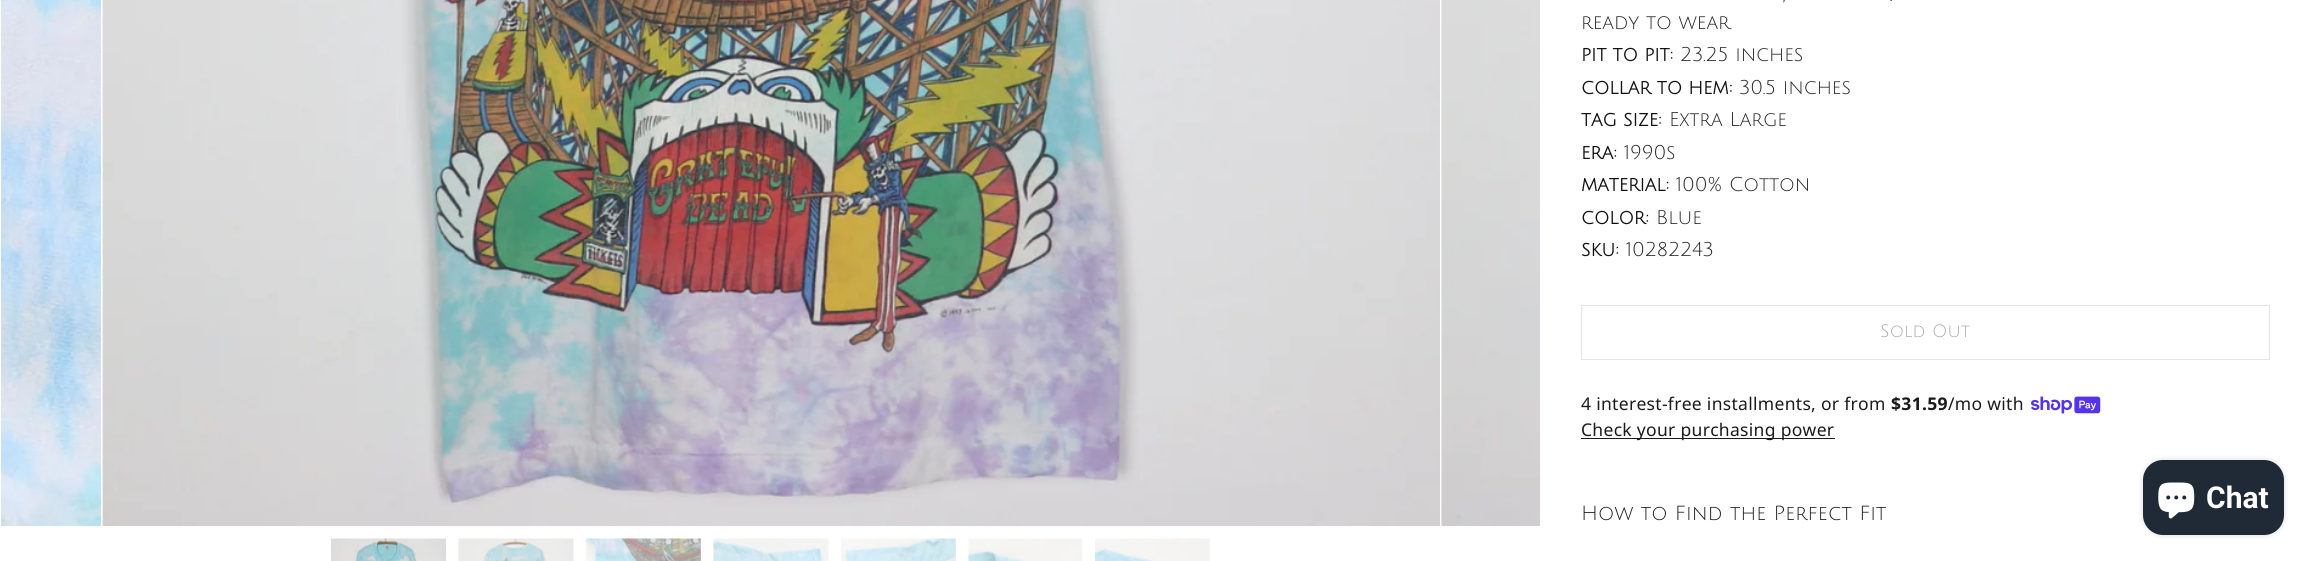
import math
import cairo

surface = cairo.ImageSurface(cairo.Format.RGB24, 2311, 561)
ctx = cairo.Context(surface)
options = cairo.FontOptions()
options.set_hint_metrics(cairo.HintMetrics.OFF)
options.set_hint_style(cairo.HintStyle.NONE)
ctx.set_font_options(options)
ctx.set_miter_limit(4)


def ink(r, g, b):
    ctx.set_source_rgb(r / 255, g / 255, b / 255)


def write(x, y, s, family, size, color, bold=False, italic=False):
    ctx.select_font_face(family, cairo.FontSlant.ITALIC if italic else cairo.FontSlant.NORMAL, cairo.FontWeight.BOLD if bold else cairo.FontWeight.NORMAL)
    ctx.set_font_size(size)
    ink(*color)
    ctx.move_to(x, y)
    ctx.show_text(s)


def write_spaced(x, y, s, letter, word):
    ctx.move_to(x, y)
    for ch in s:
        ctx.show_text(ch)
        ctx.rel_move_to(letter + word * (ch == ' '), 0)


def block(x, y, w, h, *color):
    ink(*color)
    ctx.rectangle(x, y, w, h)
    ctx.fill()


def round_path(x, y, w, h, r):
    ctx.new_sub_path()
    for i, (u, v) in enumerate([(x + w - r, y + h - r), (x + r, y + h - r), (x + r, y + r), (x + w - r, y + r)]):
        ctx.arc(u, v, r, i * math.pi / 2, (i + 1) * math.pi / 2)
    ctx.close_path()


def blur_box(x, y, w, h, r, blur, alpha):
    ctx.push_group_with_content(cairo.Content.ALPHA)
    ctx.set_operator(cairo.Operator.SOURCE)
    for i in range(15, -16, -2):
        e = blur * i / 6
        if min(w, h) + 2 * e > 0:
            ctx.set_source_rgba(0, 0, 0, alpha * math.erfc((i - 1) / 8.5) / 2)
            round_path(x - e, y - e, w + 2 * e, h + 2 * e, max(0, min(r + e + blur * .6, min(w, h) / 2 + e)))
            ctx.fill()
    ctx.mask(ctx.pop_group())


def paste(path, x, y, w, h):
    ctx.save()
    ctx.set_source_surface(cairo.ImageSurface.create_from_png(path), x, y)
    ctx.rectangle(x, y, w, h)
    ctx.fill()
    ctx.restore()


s1 = dict(family="Roboto", size=30, color=(255, 255, 255), bold=True)

ink(255, 255, 255)
ctx.paint()
paste("pic1.png", 1, 0, 100, 526)
paste("pic2.png", 102, 0, 1338, 526)
paste("pic3.png", 1441, 0, 99, 526)
paste("pic4.png", 331, 538, 115, 23)
paste("pic5.png", 458, 538, 116, 23)
paste("pic6.png", 585, 538, 116, 23)
paste("pic7.png", 713, 538, 116, 23)
paste("pic8.png", 841, 538, 115, 23)
paste("pic9.png", 968, 538, 115, 23)
paste("pic10.png", 1095, 538, 115, 23)
ctx.select_font_face("Julius Sans One")
ctx.set_font_size(19.5)
ink(34, 34, 34)
write_spaced(1783, 1, ",", -0.1, 0)
write_spaced(1890, 1, ".", -0.1, 0)
write_spaced(1581, 29, "ready to wear.", -0.1, 0)
ctx.select_font_face("Julius Sans One", cairo.FontSlant.NORMAL, cairo.FontWeight.BOLD)
ctx.set_font_size(17.5)
ink(17, 17, 17)
write_spaced(1581, 61, "PIT TO PIT:", -0.1, 0)
ctx.select_font_face("Julius Sans One")
ctx.set_font_size(19.5)
ink(34, 34, 34)
write_spaced(1680, 61, "23.25 inches", -0.1, 0)
ctx.select_font_face("Julius Sans One", cairo.FontSlant.NORMAL, cairo.FontWeight.BOLD)
ctx.set_font_size(17.5)
ink(17, 17, 17)
write_spaced(1581, 94, "COLLAR TO HEM:", -0.1, 0)
ctx.select_font_face("Julius Sans One")
ctx.set_font_size(19.5)
ink(34, 34, 34)
write_spaced(1739, 94, "30.5 inches", -0.1, 0)
ctx.select_font_face("Julius Sans One", cairo.FontSlant.NORMAL, cairo.FontWeight.BOLD)
ctx.set_font_size(17.5)
ink(17, 17, 17)
write_spaced(1581, 126, "TAG SIZE:", -0.1, 0)
ctx.select_font_face("Julius Sans One")
ctx.set_font_size(19.5)
ink(34, 34, 34)
write_spaced(1669, 126, "Extra Large", -0.1, 0)
ctx.select_font_face("Julius Sans One", cairo.FontSlant.NORMAL, cairo.FontWeight.BOLD)
ctx.set_font_size(17.5)
ink(17, 17, 17)
write_spaced(1581, 159, "ERA:", -0.1, 0)
ctx.select_font_face("Julius Sans One")
ctx.set_font_size(19.5)
ink(34, 34, 34)
write_spaced(1624, 159, "1990s", -0.1, 0)
ctx.select_font_face("Julius Sans One", cairo.FontSlant.NORMAL, cairo.FontWeight.BOLD)
ctx.set_font_size(17.5)
ink(17, 17, 17)
write_spaced(1581, 191, "MATERIAL:", -0.1, 0)
ctx.select_font_face("Julius Sans One")
ctx.set_font_size(19.5)
ink(34, 34, 34)
write_spaced(1676, 191, "100% Cotton", -0.1, 0)
ctx.select_font_face("Julius Sans One", cairo.FontSlant.NORMAL, cairo.FontWeight.BOLD)
ctx.set_font_size(17.5)
ink(17, 17, 17)
write_spaced(1581, 224, "COLOR:", -0.1, 0)
ctx.select_font_face("Julius Sans One")
ctx.set_font_size(19.5)
ink(34, 34, 34)
write_spaced(1656, 224, "Blue", -0.1, 0)
ctx.select_font_face("Julius Sans One", cairo.FontSlant.NORMAL, cairo.FontWeight.BOLD)
ctx.set_font_size(17.5)
ink(17, 17, 17)
write_spaced(1581, 256, "SKU:", -0.1, 0)
ctx.select_font_face("Julius Sans One")
ctx.set_font_size(19.5)
ink(34, 34, 34)
write_spaced(1626, 256, "10282243", -0.1, 0)
ctx.rectangle(1581.5, 305.5, 688, 54)
ink(228, 228, 228)
ctx.set_line_width(1)
ctx.stroke()
ctx.set_font_size(17.5)
ink(169, 168, 168)
write_spaced(1880, 337, "Sold Out", 0.1, 0)
ctx.select_font_face("Noto Sans")
ink(28, 27, 27)
write_spaced(1581, 410, "4 interest-free installments, or from", 0.3, 0)
ctx.select_font_face("Noto Sans", cairo.FontSlant.NORMAL, cairo.FontWeight.BOLD)
write_spaced(1891, 410, "$31.59", 0.3, 0)
ctx.select_font_face("Noto Sans")
write_spaced(1948, 410, "/mo with", 0.3, 0)
paste("pic11.png", 2031, 396, 70, 18)
block(1581, 438, 254, 1, 28, 27, 27)
write_spaced(1581, 436, "Check your purchasing power", 0.3, 0)
ctx.select_font_face("Julius Sans One")
ctx.set_font_size(20)
write_spaced(1581, 520, "How to Find the Perfect Fit", 0.1, 0)
ink(0, 0, 0)
blur_box(2143, 460, 141, 75, 20, 3, 0.15)
ink(32, 42, 54)
round_path(2143, 460, 141, 75, 20)
ctx.fill()
paste("pic12.png", 2158, 482, 37, 37)
write(2206, 508, "Chat", **s1)
surface.write_to_png("screenshot.png")
